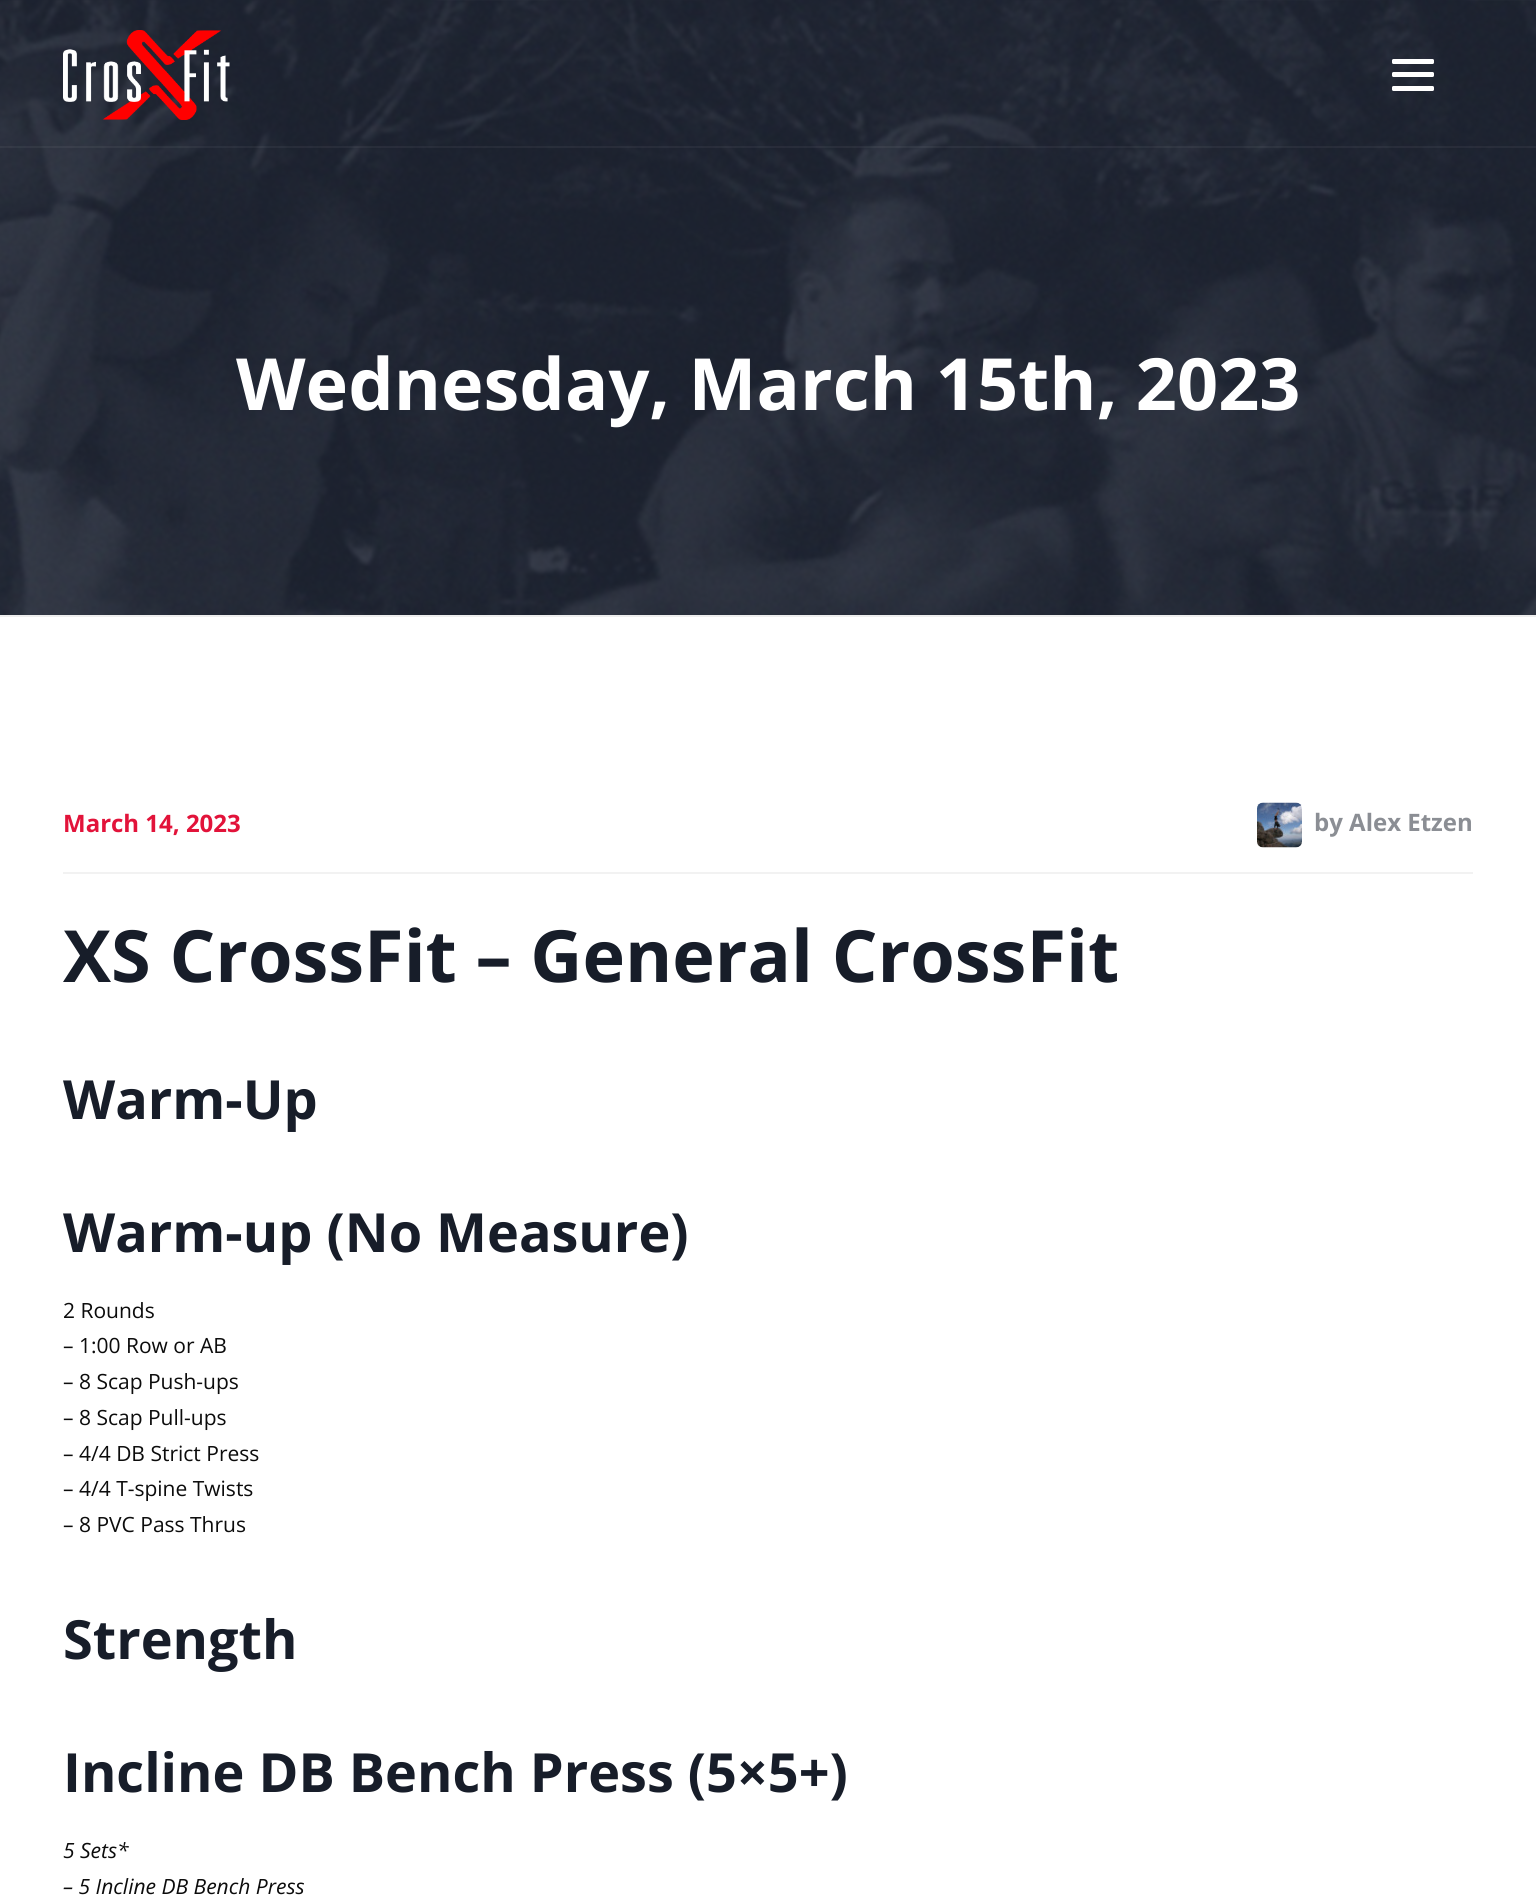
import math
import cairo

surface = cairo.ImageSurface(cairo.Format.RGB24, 1536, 1895)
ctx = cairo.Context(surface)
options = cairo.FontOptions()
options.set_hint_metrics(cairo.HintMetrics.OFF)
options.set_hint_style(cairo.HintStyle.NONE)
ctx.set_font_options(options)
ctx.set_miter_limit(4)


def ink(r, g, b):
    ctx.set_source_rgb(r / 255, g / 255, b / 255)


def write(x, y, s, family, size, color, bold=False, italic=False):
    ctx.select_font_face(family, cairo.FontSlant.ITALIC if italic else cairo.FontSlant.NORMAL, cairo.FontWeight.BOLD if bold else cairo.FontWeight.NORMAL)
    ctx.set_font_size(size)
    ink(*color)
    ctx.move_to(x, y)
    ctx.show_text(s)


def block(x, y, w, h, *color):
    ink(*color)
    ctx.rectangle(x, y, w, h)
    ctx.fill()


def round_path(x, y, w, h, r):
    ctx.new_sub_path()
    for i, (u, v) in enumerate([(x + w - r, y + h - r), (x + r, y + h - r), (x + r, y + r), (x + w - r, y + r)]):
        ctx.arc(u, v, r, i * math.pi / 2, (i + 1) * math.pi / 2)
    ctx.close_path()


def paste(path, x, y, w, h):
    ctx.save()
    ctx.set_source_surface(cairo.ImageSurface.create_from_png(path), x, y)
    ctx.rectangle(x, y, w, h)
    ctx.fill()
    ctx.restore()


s1 = dict(family="Open Sans", size=72, color=(255, 255, 255), bold=True)
s2 = dict(family="Open Sans", size=24, color=(226, 19, 58), bold=True)
s3 = dict(family="Open Sans", size=24, color=(139, 142, 148), bold=True)
s4 = dict(family="Open Sans", size=72, color=(23, 29, 41), bold=True)
s5 = dict(family="Open Sans", size=54, color=(23, 29, 41), bold=True)
s6 = dict(family="Open Sans", size=21, color=(12, 12, 12))
s7 = dict(family="Open Sans", size=21, color=(12, 12, 12), italic=True)

ink(255, 255, 255)
ctx.paint()
paste("pic2.png", 0, 0, 1536, 615)
paste("pic1.png", 63, 30, 167, 90)
ink(255, 255, 255)
round_path(1392, 59, 42, 5, 1.5)
ctx.fill()
round_path(1392, 72, 42, 5, 1.5)
ctx.fill()
round_path(1392, 86, 42, 5, 1.5)
ctx.fill()
ctx.set_source_rgba(1, 1, 1, 0.05)
ctx.rectangle(0, 146, 1536, 2)
ctx.fill()
block(0, 615, 1536, 2, 238, 238, 238)
write(236, 410, "Wednesday, March 15th, 2023", **s1)
block(63, 872, 1410, 2, 242, 242, 242)
write(63, 832, "March 14, 2023", **s2)
paste("pic3.png", 1257, 802, 45, 46)
write(1314, 831, "by Alex Etzen", **s3)
write(63, 982, "XS CrossFit – General CrossFit", **s4)
write(63, 1119, "Warm-Up", **s5)
write(63, 1252, "Warm-up (No Measure)", **s5)
write(63, 1318, "2 Rounds", **s6)
write(63, 1353, "– 1:00 Row or AB", **s6)
write(63, 1389, "– 8 Scap Push-ups", **s6)
write(63, 1425, "– 8 Scap Pull-ups", **s6)
write(63, 1461, "– 4/4 DB Strict Press", **s6)
write(63, 1496, "– 4/4 T-spine Twists", **s6)
write(63, 1532, "– 8 PVC Pass Thrus", **s6)
write(63, 1659, "Strength", **s5)
write(63, 1792, "Incline DB Bench Press (5×5+)", **s5)
write(63, 1858, "5 Sets*", **s7)
write(63, 1894, "– 5 Incline DB Bench Press", **s7)
surface.write_to_png("screenshot.png")
